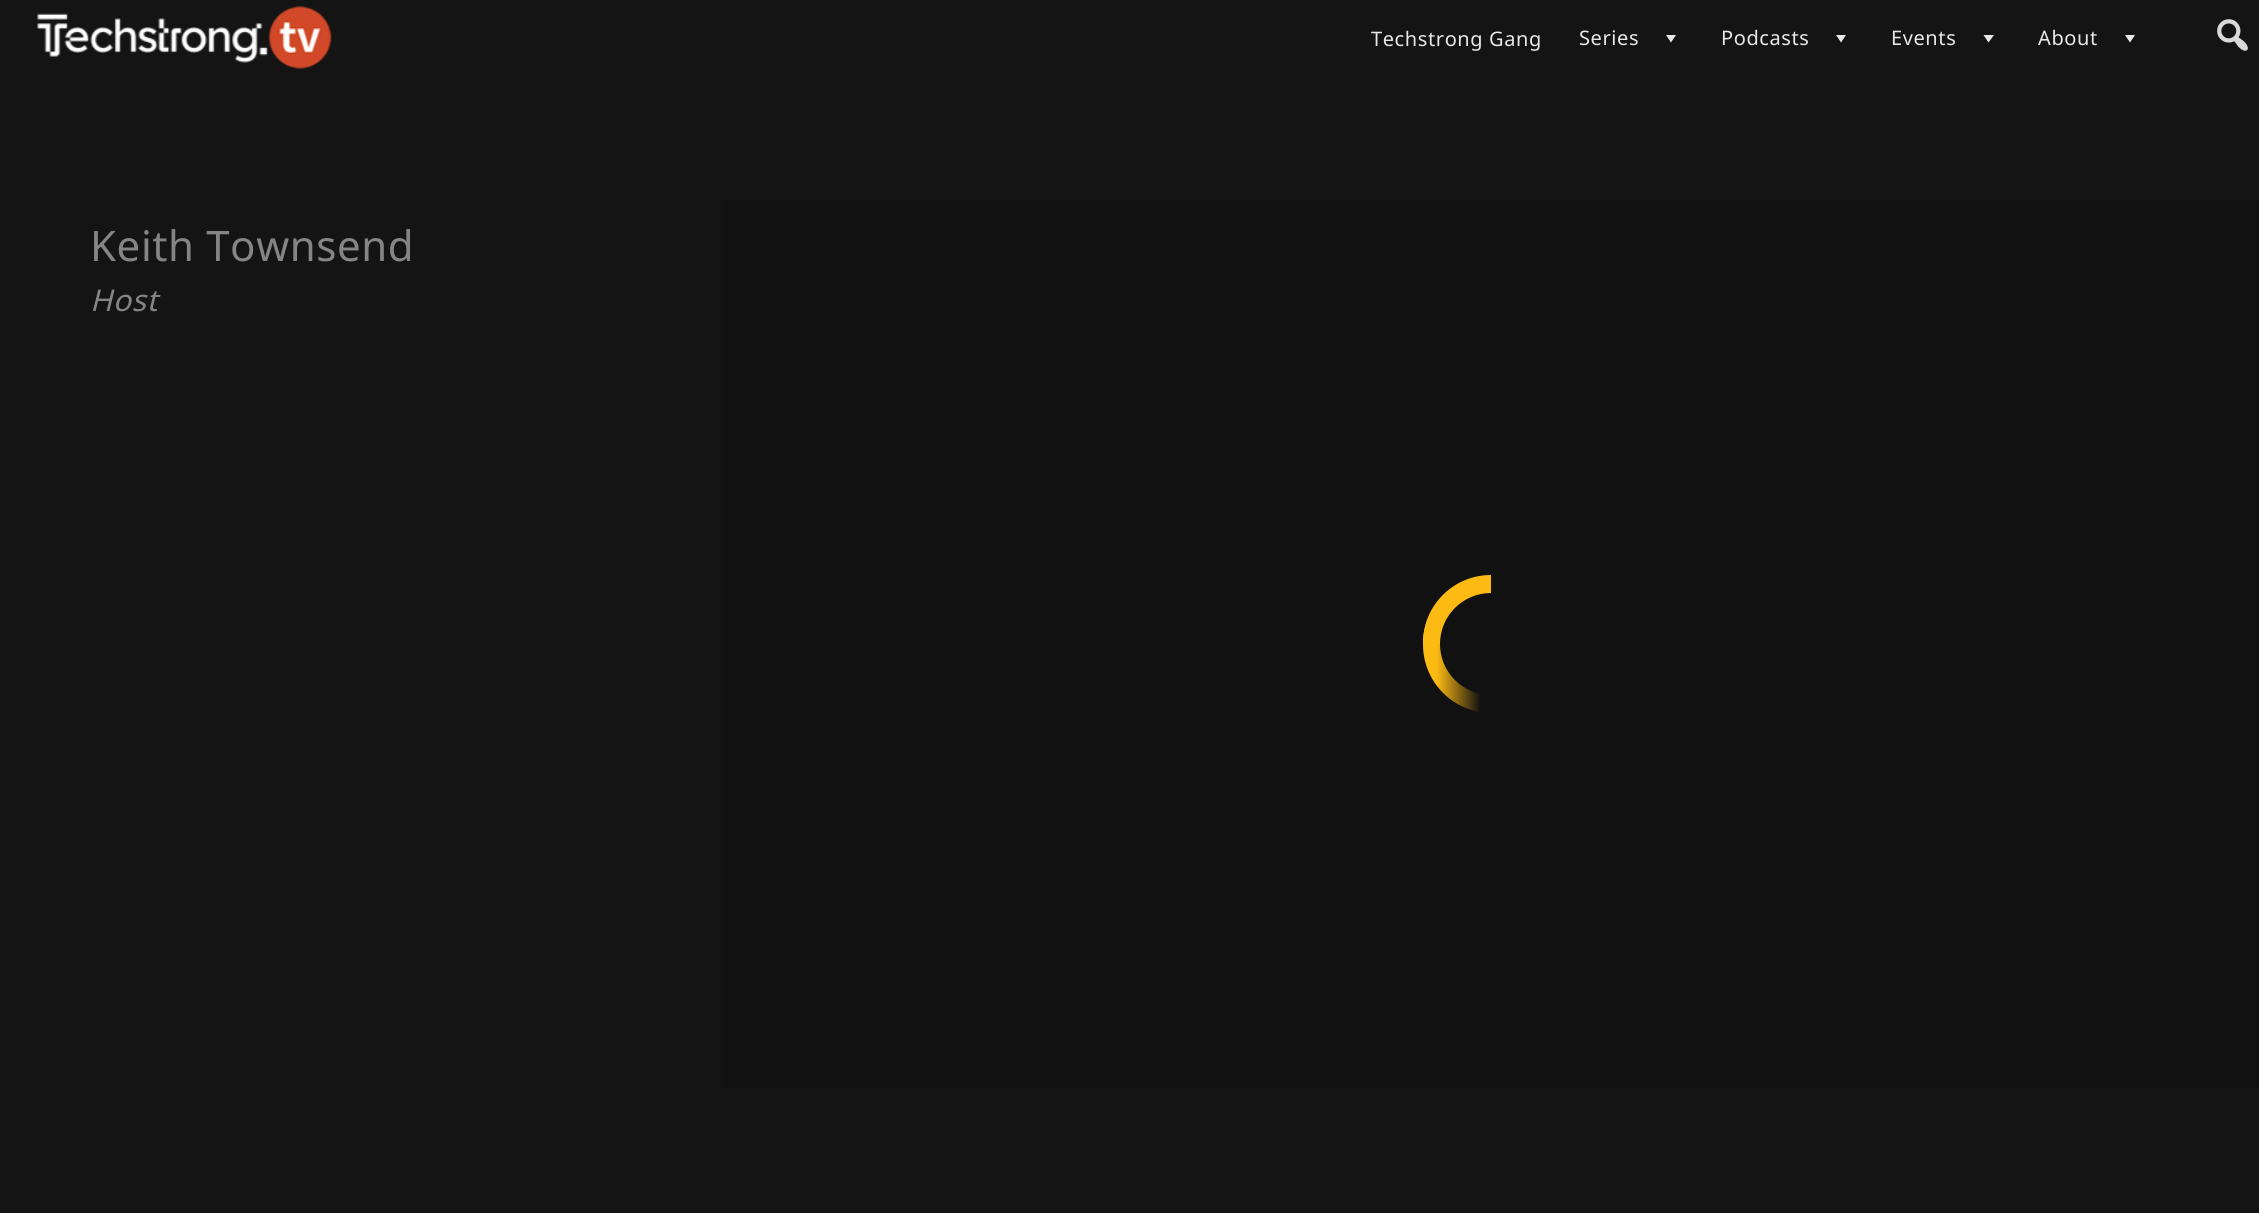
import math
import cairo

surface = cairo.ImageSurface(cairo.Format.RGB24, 2259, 1213)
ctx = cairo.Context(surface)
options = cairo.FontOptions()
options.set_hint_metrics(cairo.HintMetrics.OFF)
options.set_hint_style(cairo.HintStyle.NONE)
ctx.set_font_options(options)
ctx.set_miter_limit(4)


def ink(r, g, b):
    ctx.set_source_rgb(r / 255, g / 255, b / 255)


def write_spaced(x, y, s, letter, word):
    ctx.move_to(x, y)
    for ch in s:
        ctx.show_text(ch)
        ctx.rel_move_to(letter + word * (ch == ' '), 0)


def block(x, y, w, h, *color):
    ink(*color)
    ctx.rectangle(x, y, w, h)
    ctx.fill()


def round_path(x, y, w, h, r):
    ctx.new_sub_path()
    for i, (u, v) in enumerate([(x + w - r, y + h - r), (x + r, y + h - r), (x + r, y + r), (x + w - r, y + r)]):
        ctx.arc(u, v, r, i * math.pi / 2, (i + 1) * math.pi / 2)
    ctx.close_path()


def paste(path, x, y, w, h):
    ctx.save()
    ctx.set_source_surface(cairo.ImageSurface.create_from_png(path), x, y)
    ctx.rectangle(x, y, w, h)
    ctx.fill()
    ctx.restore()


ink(20, 20, 20)
ctx.paint()
paste("pic1.png", 37, 6, 295, 63)
ctx.select_font_face("Noto Sans")
ctx.set_font_size(20)
ink(232, 232, 232)
write_spaced(1371, 46, "Techstrong Gang", 0.6, 0)
write_spaced(1579, 45, "Series", 0.6, 0)
ctx.new_path()
ctx.move_to(1676, 35)
ctx.line_to(1671, 42.5)
ctx.line_to(1666, 35)
ctx.close_path()
ctx.fill()
write_spaced(1721, 45, "Podcasts", 0.6, 0)
ctx.new_path()
ctx.move_to(1846, 35)
ctx.line_to(1841, 42.5)
ctx.line_to(1836, 35)
ctx.close_path()
ctx.fill()
write_spaced(1891, 45, "Events", 0.6, 0)
ctx.new_path()
ctx.move_to(1994, 35)
ctx.line_to(1988.5, 42.5)
ctx.line_to(1983.5, 35)
ctx.close_path()
ctx.fill()
write_spaced(2038, 45, "About", 0.6, 0)
ctx.new_path()
ctx.move_to(2135, 35)
ctx.line_to(2130, 42.5)
ctx.line_to(2125, 35)
ctx.close_path()
ctx.fill()
paste("pic2.png", 2217, 19, 31, 32)
ctx.set_font_size(42)
ink(133, 133, 133)
write_spaced(90, 261, "Keith Townsend", 0.6, 0)
ctx.select_font_face("Noto Sans", cairo.FontSlant.ITALIC)
ctx.set_font_size(30)
write_spaced(90, 311, "Host", 0.6, 0)
block(724, 200, 1535, 888, 17, 17, 17)
gradient = cairo.LinearGradient(1423, 644, 1560, 644)
gradient.add_color_stop_rgba(0.1, 0.992, 0.729, 0.075, 1)
gradient.add_color_stop_rgba(0.42, 0.067, 0.067, 0.067, 1)
ctx.set_source(gradient)
round_path(1423, 575, 137, 138, 68.5)
ctx.fill()
ink(253, 186, 19)
ctx.new_path()
ctx.move_to(1491, 575)
ctx.line_to(1491, 644)
ctx.line_to(1423, 644)
ctx.line_to(1423, 643)
ctx.curve_to(1423, 605.5, 1453.5, 575, 1491, 575)
ctx.close_path()
ctx.fill()
ink(17, 17, 17)
round_path(1440, 593, 104, 102, 51)
ctx.fill()
surface.write_to_png("screenshot.png")
